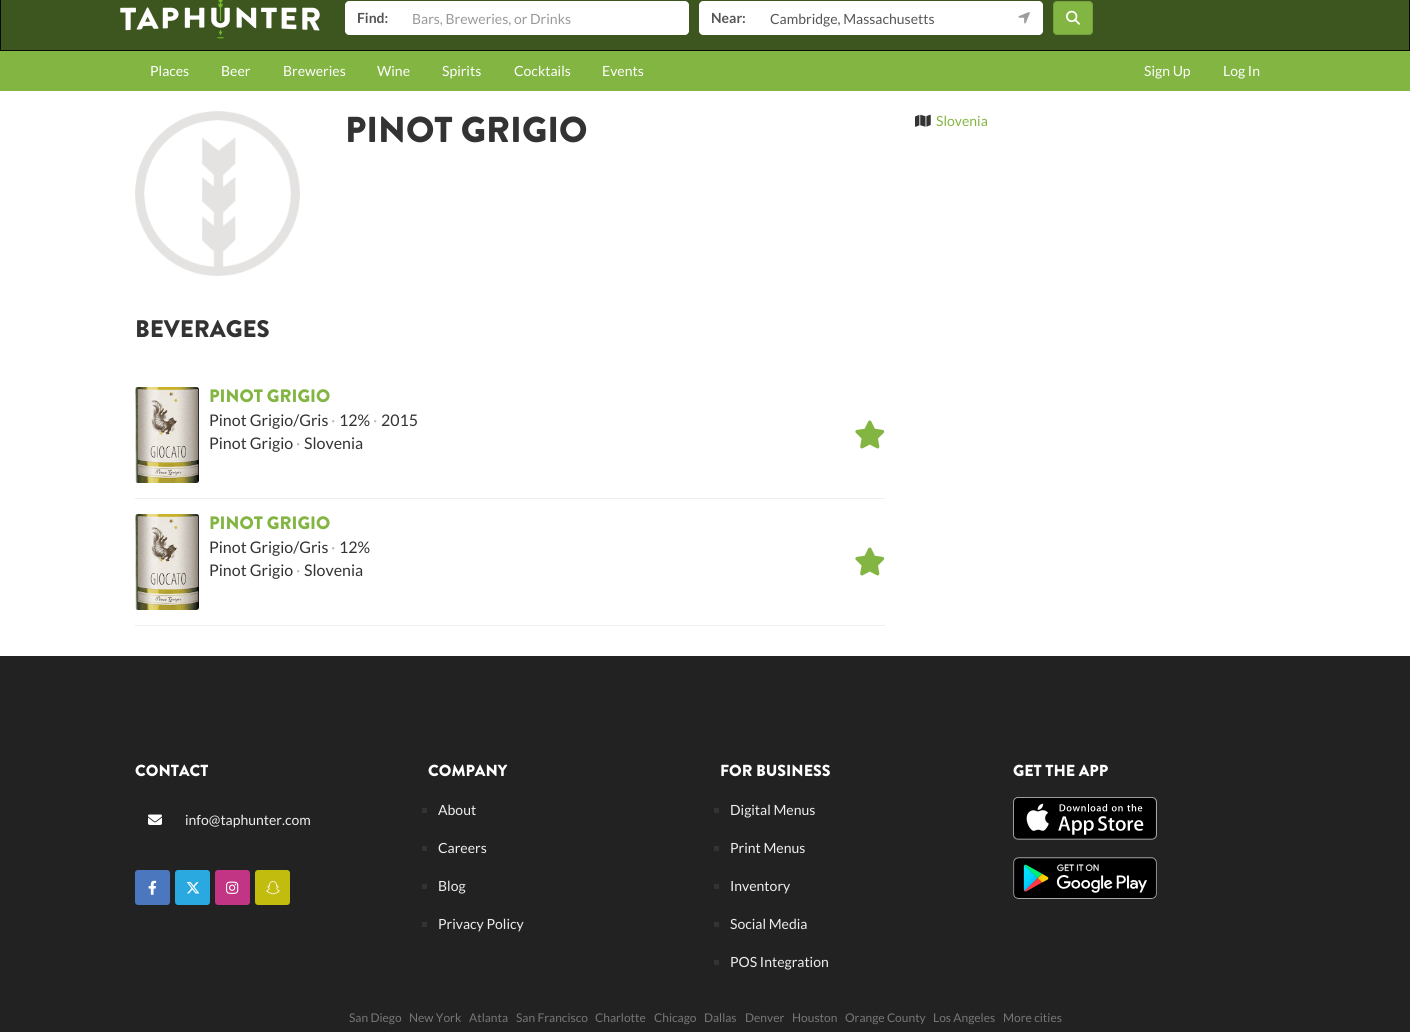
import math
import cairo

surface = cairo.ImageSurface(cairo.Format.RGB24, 1410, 1032)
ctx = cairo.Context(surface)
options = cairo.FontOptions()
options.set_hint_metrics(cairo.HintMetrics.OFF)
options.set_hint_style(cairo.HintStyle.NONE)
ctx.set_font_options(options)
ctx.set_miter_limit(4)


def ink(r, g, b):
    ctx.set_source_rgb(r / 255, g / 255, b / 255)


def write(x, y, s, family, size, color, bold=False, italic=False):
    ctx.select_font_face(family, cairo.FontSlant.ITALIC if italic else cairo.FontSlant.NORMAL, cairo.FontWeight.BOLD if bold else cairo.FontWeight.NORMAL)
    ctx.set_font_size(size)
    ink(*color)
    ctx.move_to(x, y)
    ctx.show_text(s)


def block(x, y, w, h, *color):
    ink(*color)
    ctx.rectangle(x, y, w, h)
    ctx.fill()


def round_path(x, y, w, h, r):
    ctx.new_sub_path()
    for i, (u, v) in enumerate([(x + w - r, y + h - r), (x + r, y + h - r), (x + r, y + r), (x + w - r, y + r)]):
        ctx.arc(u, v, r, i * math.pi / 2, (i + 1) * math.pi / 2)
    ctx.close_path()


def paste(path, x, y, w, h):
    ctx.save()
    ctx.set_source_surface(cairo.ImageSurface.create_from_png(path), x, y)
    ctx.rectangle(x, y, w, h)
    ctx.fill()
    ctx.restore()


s1 = dict(family="Lato", size=14, color=(85, 85, 85), bold=True)
s2 = dict(family="Lato", size=14, color=(153, 153, 153))
s3 = dict(family="Lato", size=14, color=(85, 85, 85))
s4 = dict(family="Lato", size=14, color=(255, 255, 255))
s5 = dict(family="Brandon Grotesque Black", size=36, color=(51, 51, 51))
s6 = dict(family="Lato", size=14, color=(131, 181, 67))
s7 = dict(family="Brandon Grotesque Black", size=24, color=(51, 51, 51))
s8 = dict(family="Brandon Grotesque Black", size=18, color=(131, 181, 67))
s9 = dict(family="Lato", size=16, color=(51, 51, 51))
s10 = dict(family="Lato", size=16, color=(187, 187, 187))
s11 = dict(family="Brandon Grotesque Black", size=16, color=(255, 255, 255))
s12 = dict(family="Lato", size=14, color=(238, 238, 238))
s13 = dict(family="Lato", size=12, color=(119, 119, 119))

ink(255, 255, 255)
ctx.paint()
ink(61, 85, 30)
ctx.rectangle(0.5, -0.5, 1409, 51)
ctx.fill_preserve()
ink(9, 9, 9)
ctx.set_line_width(1)
ctx.stroke()
paste("pic1.png", 120, 0, 200, 39)
ink(255, 255, 255)
ctx.new_path()
ctx.move_to(349, 1)
ctx.line_to(400, 1)
ctx.line_to(400, 35)
ctx.line_to(349, 35)
ctx.curve_to(347, 35, 345, 33, 345, 31)
ctx.line_to(345, 5)
ctx.curve_to(345, 3, 347, 1, 349, 1)
ctx.close_path()
ctx.fill()
write(357, 23, "Find:", **s1)
ink(255, 255, 255)
ctx.new_path()
ctx.move_to(400, 1)
ctx.line_to(685, 1)
ctx.curve_to(687, 1, 689, 3, 689, 5)
ctx.line_to(689, 31)
ctx.curve_to(689, 33, 687, 35, 685, 35)
ctx.line_to(400, 35)
ctx.close_path()
ctx.fill()
write(412, 24, "Bars, Breweries, or Drinks", **s2)
ink(255, 255, 255)
ctx.new_path()
ctx.move_to(703, 1)
ctx.line_to(758, 1)
ctx.line_to(758, 35)
ctx.line_to(703, 35)
ctx.curve_to(701, 35, 699, 33, 699, 31)
ctx.line_to(699, 5)
ctx.curve_to(699, 3, 701, 1, 703, 1)
ctx.close_path()
ctx.fill()
write(711, 23, "Near:", **s1)
block(758, 1, 247, 34, 255, 255, 255)
write(770, 24, "Cambridge, Massachusetts", **s3)
ink(255, 255, 255)
ctx.new_path()
ctx.move_to(1005, 1)
ctx.line_to(1039, 1)
ctx.curve_to(1041, 1, 1043, 3, 1043, 5)
ctx.line_to(1043, 31)
ctx.curve_to(1043, 33, 1041, 35, 1039, 35)
ctx.line_to(1005, 35)
ctx.close_path()
ctx.fill()
paste("pic2.png", 1018, 12, 12, 12)
ink(131, 181, 67)
round_path(1053.5, 1.5, 39, 33, 3.5)
ctx.fill_preserve()
ink(118, 162, 60)
ctx.stroke()
paste("pic3.png", 1066, 10, 14, 15)
block(0, 51, 1410, 40, 131, 181, 67)
write(150, 76, "Places", **s4)
write(221, 76, "Beer", **s4)
write(283, 76, "Breweries", **s4)
write(377, 76, "Wine", **s4)
write(442, 76, "Spirits", **s4)
write(514, 76, "Cocktails", **s4)
write(602, 76, "Events", **s4)
write(1144, 76, "Sign Up", **s4)
write(1223, 76, "Log In", **s4)
paste("pic4.png", 135, 111, 165, 165)
write(345, 142, "PINOT GRIGIO", **s5)
paste("pic5.png", 915, 114, 16, 13)
write(936, 126, "Slovenia", **s6)
write(135, 337, "BEVERAGES", **s7)
block(135, 498, 750, 1, 238, 238, 238)
paste("pic6.png", 135, 387, 64, 96)
write(209, 402, "PINOT GRIGIO", **s8)
write(209, 426, "Pinot Grigio/Gris", **s9)
write(331, 426, "·", **s10)
write(339, 426, "12%", **s9)
write(373, 426, "·", **s10)
write(381, 426, "2015", **s9)
write(209, 449, "Pinot Grigio", **s9)
write(296, 449, "·", **s10)
write(304, 449, "Slovenia", **s9)
paste("pic7.png", 855, 420, 30, 29)
block(135, 625, 750, 1, 238, 238, 238)
paste("pic6.png", 135, 514, 64, 96)
write(209, 529, "PINOT GRIGIO", **s8)
write(209, 553, "Pinot Grigio/Gris", **s9)
write(331, 553, "·", **s10)
write(339, 553, "12%", **s9)
write(209, 576, "Pinot Grigio", **s9)
write(296, 576, "·", **s10)
write(304, 576, "Slovenia", **s9)
paste("pic7.png", 855, 547, 30, 29)
block(0, 656, 1410, 376, 34, 34, 34)
write(135, 776, "CONTACT", **s11)
paste("pic8.png", 148, 814, 14, 11)
write(185, 825, "info@taphunter.com", **s12)
ink(75, 119, 190)
round_path(135, 870, 35, 35, 3)
ctx.fill()
paste("pic9.png", 148, 880, 9, 15)
ink(42, 169, 224)
round_path(175, 870, 35, 35, 3)
ctx.fill()
paste("pic10.png", 186, 882, 14, 12)
ink(193, 53, 132)
round_path(215, 870, 35, 35, 3)
ctx.fill()
paste("pic11.png", 226, 881, 13, 13)
ink(194, 188, 15)
round_path(255, 870, 35, 35, 3)
ctx.fill()
paste("pic12.png", 266, 881, 14, 14)
write(428, 776, "COMPANY", **s11)
block(422, 808, 5, 5, 51, 51, 51)
write(438, 815, "About", **s12)
block(422, 846, 5, 5, 51, 51, 51)
write(438, 853, "Careers", **s12)
block(422, 884, 5, 5, 51, 51, 51)
write(438, 891, "Blog", **s12)
block(422, 922, 5, 5, 51, 51, 51)
write(438, 929, "Privacy Policy", **s12)
write(720, 776, "FOR BUSINESS", **s11)
block(714, 808, 5, 5, 51, 51, 51)
write(730, 815, "Digital Menus", **s12)
block(714, 846, 5, 5, 51, 51, 51)
write(730, 853, "Print Menus", **s12)
block(714, 884, 5, 5, 51, 51, 51)
write(730, 891, "Inventory", **s12)
block(714, 922, 5, 5, 51, 51, 51)
write(730, 929, "Social Media", **s12)
block(714, 960, 5, 5, 51, 51, 51)
write(730, 967, "POS Integration", **s12)
write(1013, 776, "GET THE APP", **s11)
paste("pic13.png", 1013, 797, 144, 43)
paste("pic14.png", 1013, 857, 144, 42)
write(349, 1022, "San Diego", **s13)
write(409, 1022, "New York", **s13)
write(469, 1022, "Atlanta", **s13)
write(516, 1022, "San Francisco", **s13)
write(595, 1022, "Charlotte", **s13)
write(654, 1022, "Chicago", **s13)
write(704, 1022, "Dallas", **s13)
write(745, 1022, "Denver", **s13)
write(792, 1022, "Houston", **s13)
write(845, 1022, "Orange County", **s13)
write(933, 1022, "Los Angeles", **s13)
write(1003, 1022, "More cities", **s13)
surface.write_to_png("screenshot.png")
